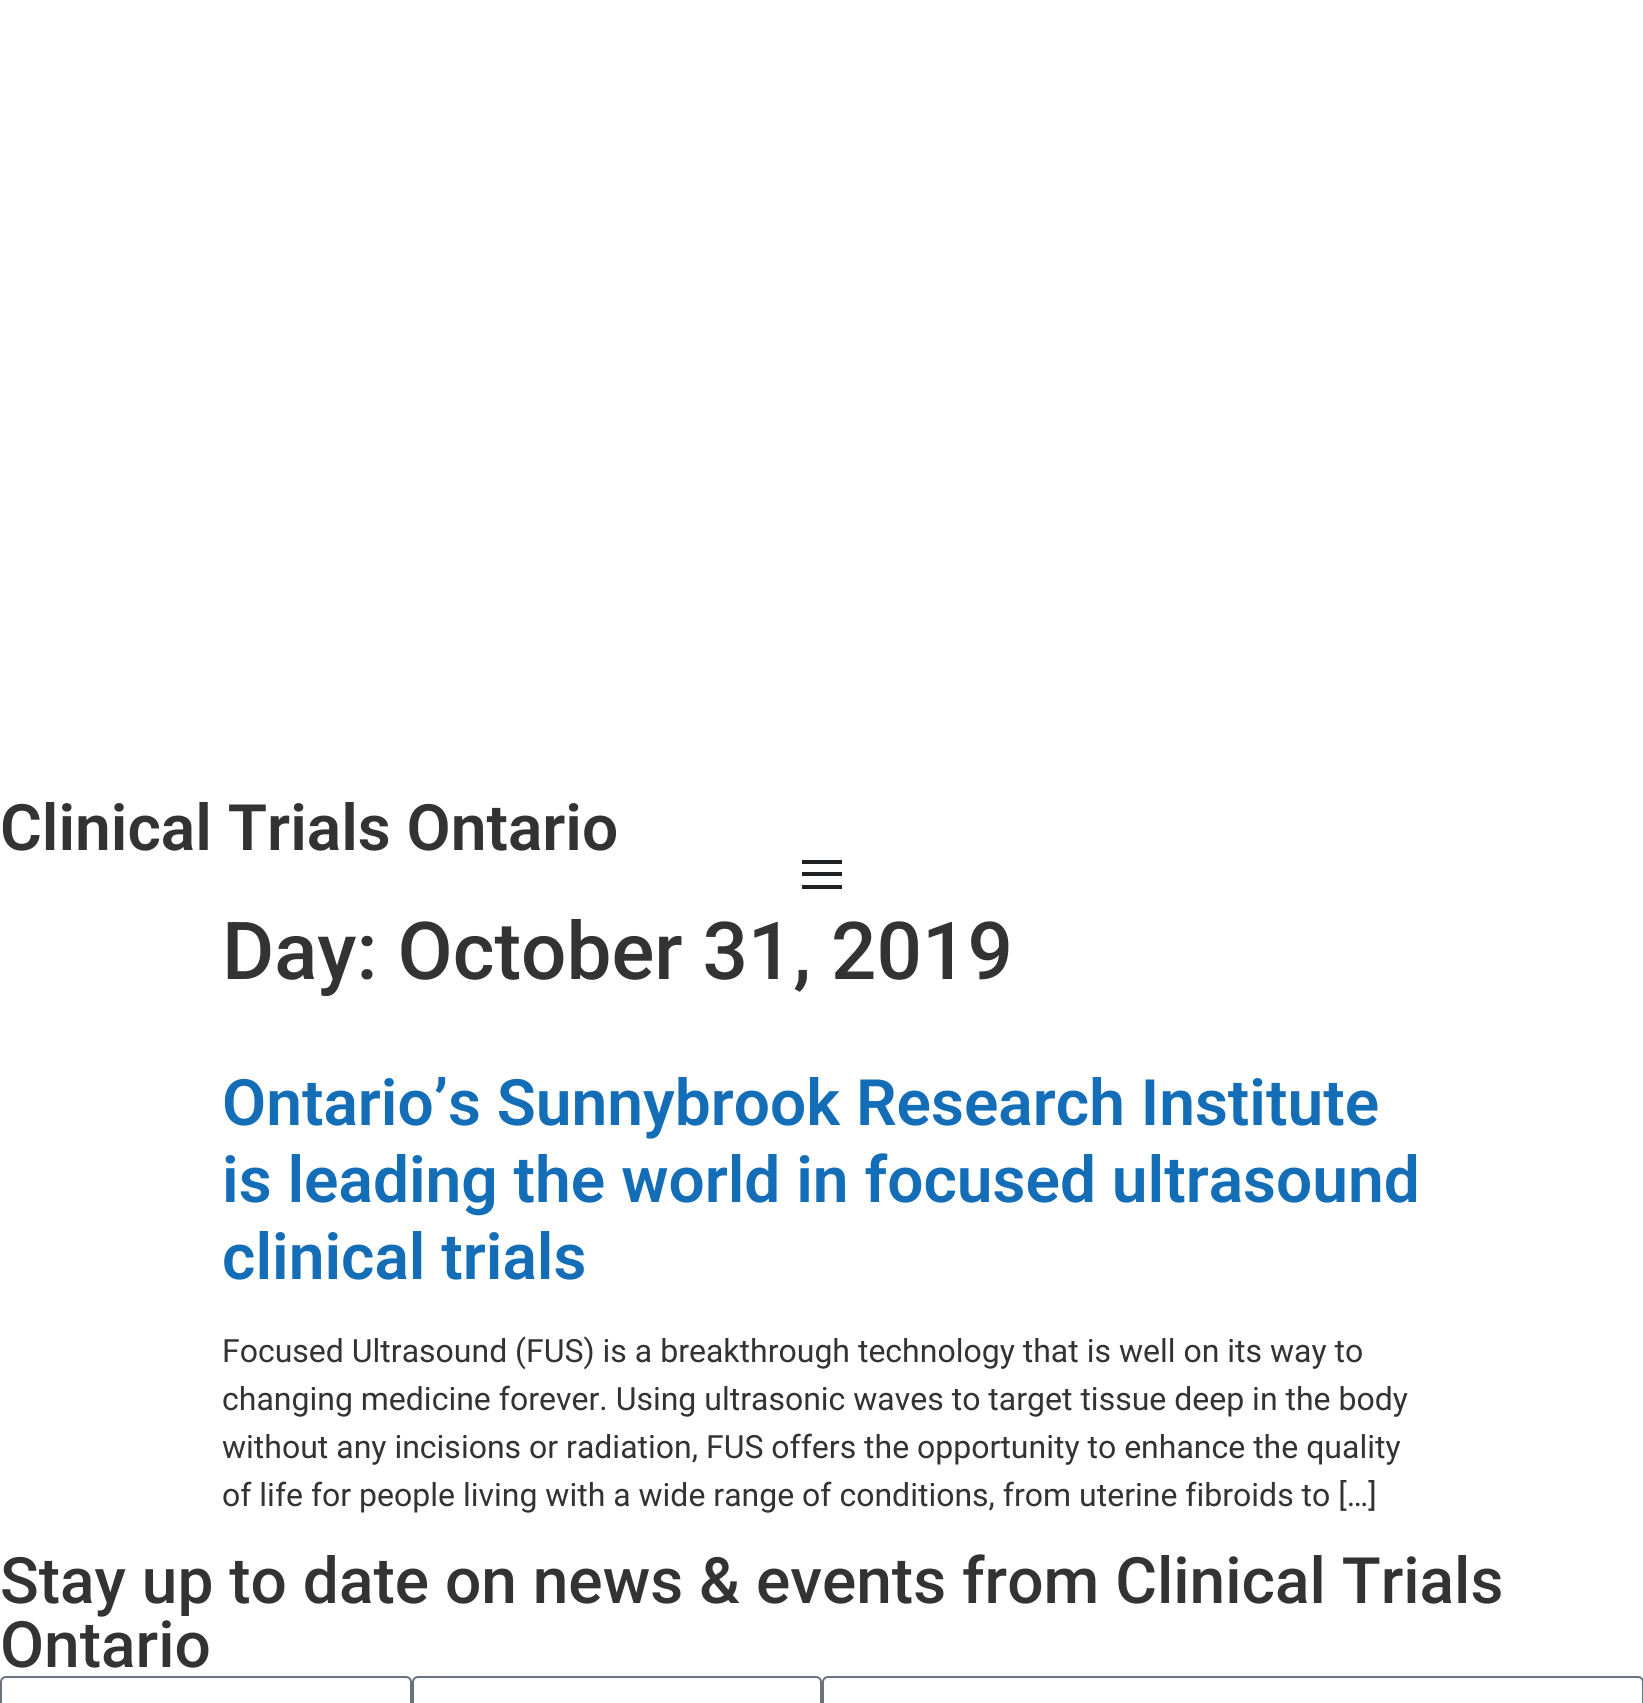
import math
import cairo

surface = cairo.ImageSurface(cairo.Format.RGB24, 1643, 1703)
ctx = cairo.Context(surface)
options = cairo.FontOptions()
options.set_hint_metrics(cairo.HintMetrics.OFF)
options.set_hint_style(cairo.HintStyle.NONE)
ctx.set_font_options(options)
ctx.set_miter_limit(4)


def ink(r, g, b):
    ctx.set_source_rgb(r / 255, g / 255, b / 255)


def write(x, y, s, family, size, color, bold=False, italic=False):
    ctx.select_font_face(family, cairo.FontSlant.ITALIC if italic else cairo.FontSlant.NORMAL, cairo.FontWeight.BOLD if bold else cairo.FontWeight.NORMAL)
    ctx.set_font_size(size)
    ink(*color)
    ctx.move_to(x, y)
    ctx.show_text(s)


def block(x, y, w, h, *color):
    ink(*color)
    ctx.rectangle(x, y, w, h)
    ctx.fill()


def round_path(x, y, w, h, r):
    ctx.new_sub_path()
    for i, (u, v) in enumerate([(x + w - r, y + h - r), (x + r, y + h - r), (x + r, y + r), (x + w - r, y + r)]):
        ctx.arc(u, v, r, i * math.pi / 2, (i + 1) * math.pi / 2)
    ctx.close_path()


s1 = dict(family="Roboto SemiBold", size=64, color=(51, 51, 51))
s2 = dict(family="Roboto Medium", size=80, color=(51, 51, 51))
s3 = dict(family="Roboto SemiBold", size=64, color=(20, 109, 183))
s4 = dict(family="Roboto", size=32, color=(51, 51, 51))
s5 = dict(family="Roboto Medium", size=64, color=(51, 51, 51))

ink(255, 255, 255)
ctx.paint()
write(0, 850, "Clinical Trials Ontario", **s1)
block(802, 872, 40, 4, 31, 33, 36)
block(802, 860, 40, 4, 31, 33, 36)
block(802, 885, 40, 4, 31, 33, 36)
write(222, 979, "Day: October 31, 2019", **s2)
write(222, 1125, "Ontario’s Sunnybrook Research Institute", **s3)
write(222, 1202, "is leading the world in focused ultrasound", **s3)
write(222, 1279, "clinical trials", **s3)
write(222, 1362, "Focused Ultrasound (FUS) is a breakthrough technology that is well on its way to", **s4)
write(222, 1410, "changing medicine forever. Using ultrasonic waves to target tissue deep in the body", **s4)
write(222, 1458, "without any incisions or radiation, FUS offers the opportunity to enhance the quality", **s4)
write(222, 1506, "of life for people living with a wide range of conditions, from uterine fibroids to […]", **s4)
write(0, 1603, "Stay up to date on news & events from Clinical Trials", **s5)
write(0, 1667, "Ontario", **s5)
round_path(1, 1677, 410, 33, 5)
ink(105, 114, 125)
ctx.stroke()
round_path(413, 1677, 408, 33, 5)
ctx.stroke()
round_path(823, 1677, 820, 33, 5)
ctx.stroke()
surface.write_to_png("screenshot.png")
